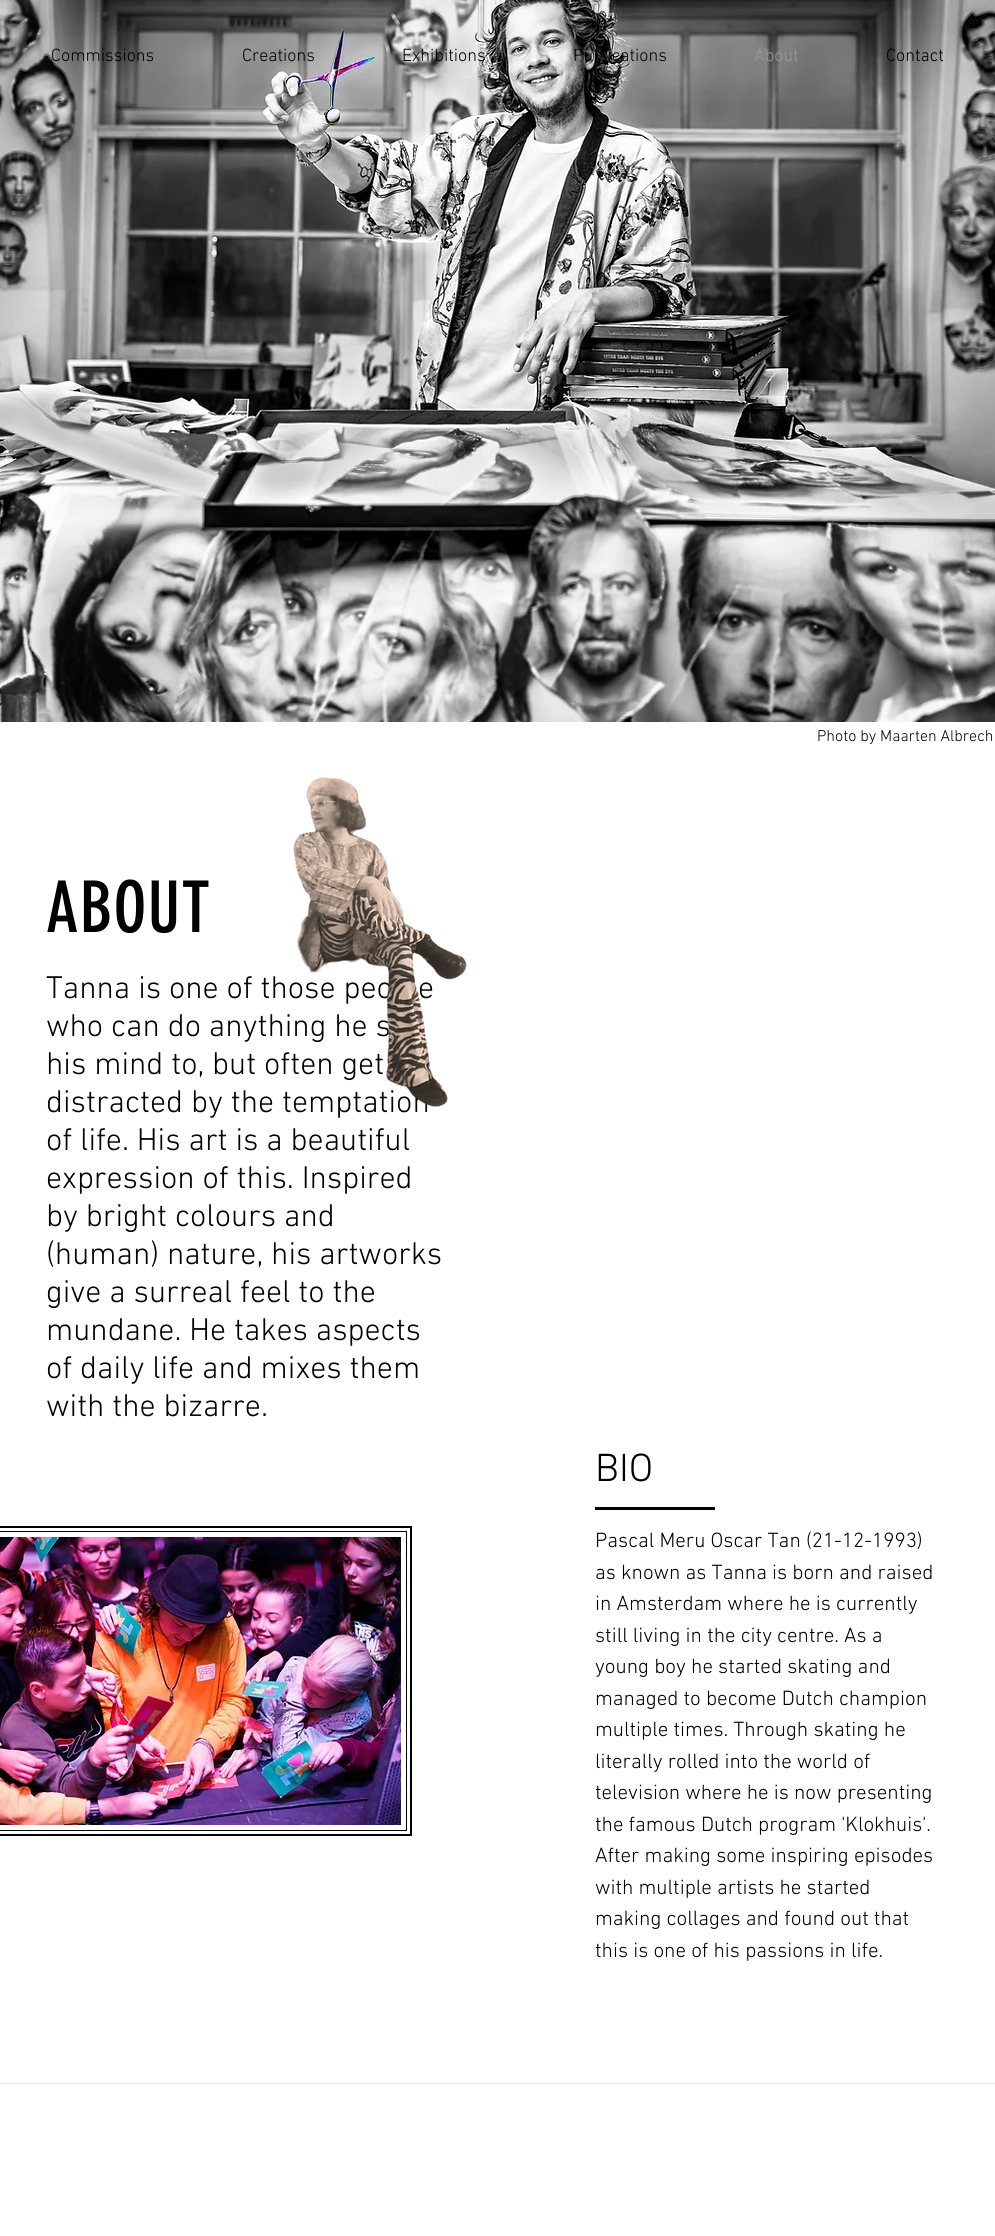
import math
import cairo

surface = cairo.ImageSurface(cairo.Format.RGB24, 995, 2236)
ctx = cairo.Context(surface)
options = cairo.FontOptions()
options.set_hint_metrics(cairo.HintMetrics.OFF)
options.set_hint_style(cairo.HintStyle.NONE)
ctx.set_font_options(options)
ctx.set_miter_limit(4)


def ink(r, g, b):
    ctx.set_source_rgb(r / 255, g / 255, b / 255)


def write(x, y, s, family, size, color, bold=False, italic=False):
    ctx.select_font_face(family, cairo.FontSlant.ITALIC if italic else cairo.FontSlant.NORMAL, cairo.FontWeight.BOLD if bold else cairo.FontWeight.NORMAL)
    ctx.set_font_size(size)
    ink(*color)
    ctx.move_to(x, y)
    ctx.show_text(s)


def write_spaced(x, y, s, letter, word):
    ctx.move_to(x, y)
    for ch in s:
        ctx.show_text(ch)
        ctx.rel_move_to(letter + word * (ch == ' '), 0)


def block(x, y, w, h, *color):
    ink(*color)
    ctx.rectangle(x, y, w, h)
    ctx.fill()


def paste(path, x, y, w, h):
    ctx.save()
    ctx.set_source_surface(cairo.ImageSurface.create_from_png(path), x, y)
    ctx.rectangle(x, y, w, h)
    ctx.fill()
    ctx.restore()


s1 = dict(family="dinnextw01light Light", size=18, color=(0, 0, 0))
s2 = dict(family="dinnextw01light Light", size=18, color=(153, 153, 151))
s3 = dict(family="dinnextw01light Light", size=16, color=(0, 0, 0))
s4 = dict(family="dinnextw01light Light", size=32, color=(0, 0, 0))
s5 = dict(family="dinnextw01light Light", size=40, color=(0, 0, 0))
s6 = dict(family="dinnextw01light Light", size=21, color=(0, 0, 0))

ink(255, 255, 255)
ctx.paint()
paste("pic1.png", 0, 0, 995, 722)
write(51, 61, "Commissions", **s1)
write(242, 61, "Creations", **s1)
write(402, 61, "Exhibitions", **s1)
write(573, 61, "Publications", **s1)
write(754, 61, "About", **s2)
write(886, 61, "Contact", **s1)
write(817, 741, "Photo by Maarten Albrech", **s3)
write(46, 998, "Tanna is one of those peo", **s4)
write(418, 998, "e", **s4)
write(46, 1036, "who can do anything he s", **s4)
write(46, 1074, "his mind to, but often get", **s4)
write(46, 1112, "distracted by the temptation", **s4)
paste("pic2.png", 293, 777, 174, 330)
ctx.select_font_face("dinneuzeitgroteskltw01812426")
ctx.set_font_size(70)
write_spaced(46, 932, "ABOUT", 1.5, 0)
write(46, 1150, "of life. His art is a beautiful", **s4)
write(46, 1188, "expression of this. Inspired", **s4)
write(46, 1226, "by bright colours and", **s4)
write(46, 1264, "(human) nature, his artworks", **s4)
write(46, 1302, "give a surreal feel to the", **s4)
write(46, 1340, "mundane. He takes aspects", **s4)
write(46, 1378, "of daily life and mixes them", **s4)
write(46, 1416, "with the bizarre.", **s4)
write(595, 1481, "BIO", **s5)
block(595, 1507, 120, 3, 0, 0, 0)
ctx.rectangle(-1, 1527, 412, 308)
ctx.stroke()
paste("pic3.png", 0, 1537, 401, 288)
ctx.rectangle(-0.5, 1531.5, 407, 299)
ctx.set_line_width(1)
ctx.stroke()
write(595, 1547, "Pascal Meru Oscar Tan (21-12-1993)", **s6)
write(595, 1579, "as known as Tanna is born and raised", **s6)
write(595, 1610, "in Amsterdam where he is currently", **s6)
write(595, 1642, "still living in the city centre. As a", **s6)
write(595, 1673, "young boy he started skating and", **s6)
write(595, 1705, "managed to become Dutch champion", **s6)
write(595, 1736, "multiple times. Through skating he", **s6)
write(595, 1768, "literally rolled into the world of", **s6)
write(595, 1799, "television where he is now presenting", **s6)
write(595, 1831, "the famous Dutch program 'Klokhuis'.", **s6)
write(595, 1862, "After making some inspiring episodes", **s6)
write(595, 1894, "with multiple artists he started", **s6)
write(595, 1925, "making collages and found out that", **s6)
write(595, 1957, "this is one of his passions in life.", **s6)
block(0, 2083, 995, 1, 232, 230, 230)
surface.write_to_png("screenshot.png")
